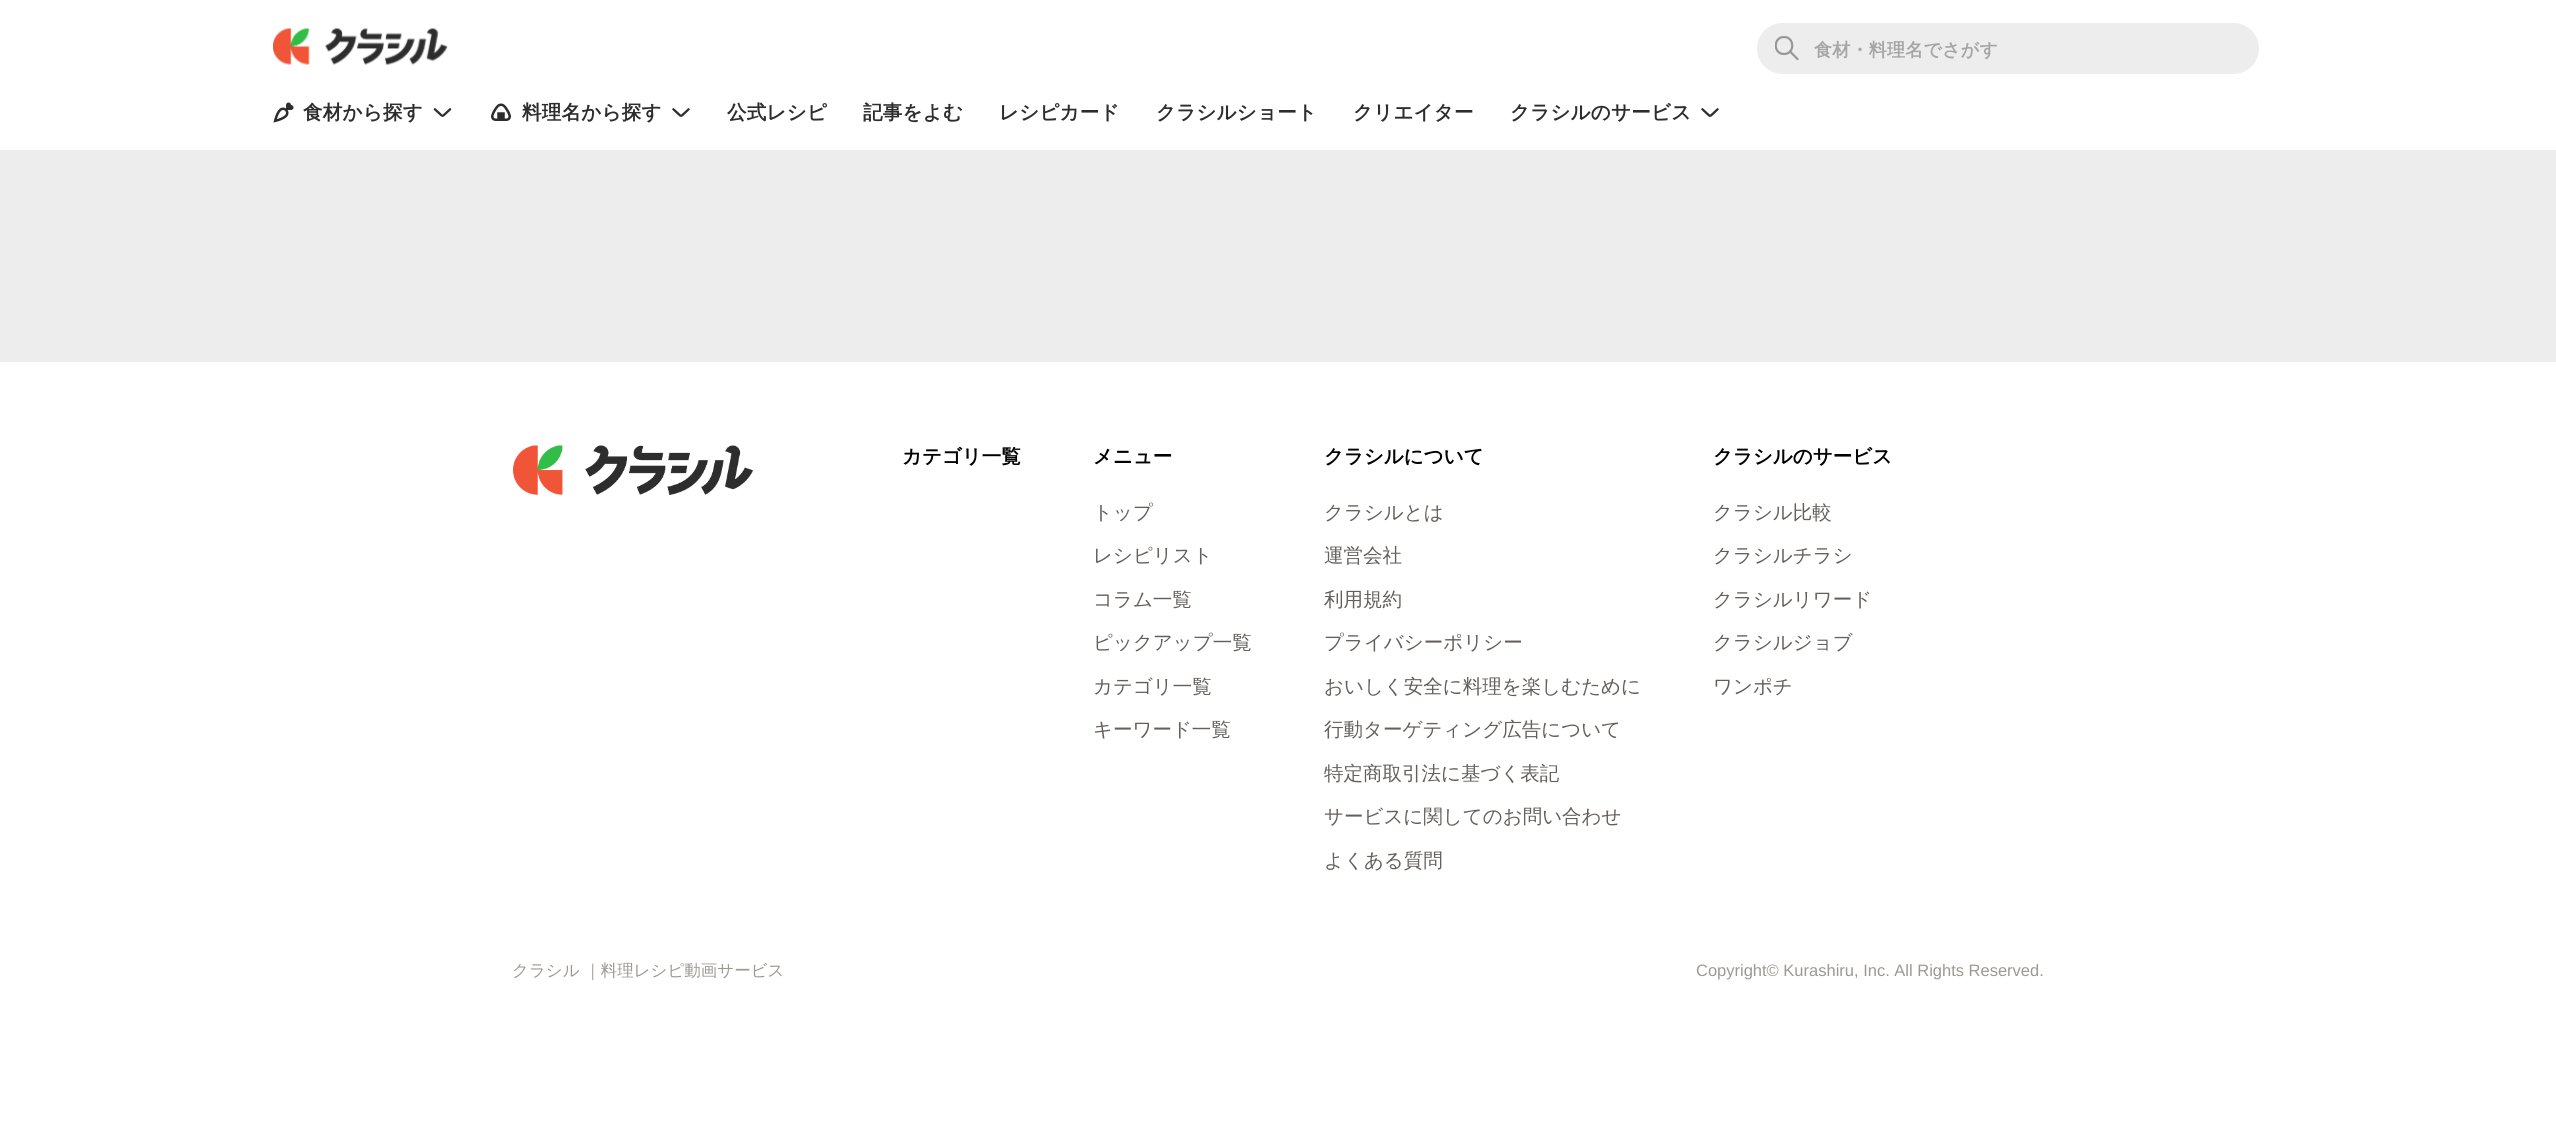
import math
import cairo

surface = cairo.ImageSurface(cairo.Format.RGB24, 2556, 1147)
ctx = cairo.Context(surface)
options = cairo.FontOptions()
options.set_hint_metrics(cairo.HintMetrics.OFF)
options.set_hint_style(cairo.HintStyle.NONE)
ctx.set_font_options(options)
ctx.set_miter_limit(4)


def ink(r, g, b):
    ctx.set_source_rgb(r / 255, g / 255, b / 255)


def write(x, y, s, family, size, color, bold=False, italic=False):
    ctx.select_font_face(family, cairo.FontSlant.ITALIC if italic else cairo.FontSlant.NORMAL, cairo.FontWeight.BOLD if bold else cairo.FontWeight.NORMAL)
    ctx.set_font_size(size)
    ink(*color)
    ctx.move_to(x, y)
    ctx.show_text(s)


def write_spaced(x, y, s, letter, word):
    ctx.move_to(x, y)
    for ch in s:
        ctx.show_text(ch)
        ctx.rel_move_to(letter + word * (ch == ' '), 0)


def block(x, y, w, h, *color):
    ink(*color)
    ctx.rectangle(x, y, w, h)
    ctx.fill()


def round_path(x, y, w, h, r):
    ctx.new_sub_path()
    for i, (u, v) in enumerate([(x + w - r, y + h - r), (x + r, y + h - r), (x + r, y + r), (x + w - r, y + r)]):
        ctx.arc(u, v, r, i * math.pi / 2, (i + 1) * math.pi / 2)
    ctx.close_path()


def paste(path, x, y, w, h):
    ctx.save()
    ctx.set_source_surface(cairo.ImageSurface.create_from_png(path), x, y)
    ctx.rectangle(x, y, w, h)
    ctx.fill()
    ctx.restore()


s1 = dict(family="WenQuanYi Zen Hei", size=19.5, color=(0, 0, 0), bold=True)
s2 = dict(family="WenQuanYi Zen Hei Medium", size=19.5, color=(99, 95, 90))
s3 = dict(family="WenQuanYi Zen Hei Medium", size=16.5, color=(156, 152, 146))
s4 = dict(family="Liberation Sans", size=16.5, color=(156, 152, 146))

ink(255, 255, 255)
ctx.paint()
paste("pic1.png", 273, 28, 175, 37)
ink(237, 237, 237)
round_path(1757, 23, 502, 51, 25.5)
ctx.fill()
ctx.new_path()
ctx.move_to(1790, 51.5)
ctx.line_to(1797.5, 59)
ink(151, 151, 151)
ctx.set_line_width(2.2)
ctx.set_line_cap(cairo.LineCap.ROUND)
ctx.set_line_join(cairo.LineJoin.ROUND)
ctx.stroke()
ctx.save()
ctx.rectangle(1775, 36, 24, 24)
ctx.clip()
ctx.new_path()
ctx.move_to(1784, 54)
ctx.curve_to(1795, 54, 1795, 37, 1784, 37)
ctx.curve_to(1773, 37, 1773, 54, 1784, 54)
ctx.close_path()
ctx.stroke()
ctx.restore()
ctx.select_font_face("WenQuanYi Zen Hei", cairo.FontSlant.NORMAL, cairo.FontWeight.BOLD)
ctx.set_font_size(18)
ink(166, 166, 166)
write_spaced(1814, 56, "食材・料理名でさがす", 0.25, 0)
paste("pic2.png", 273, 102, 21, 21)
ctx.set_font_size(19.5)
ink(45, 45, 45)
write_spaced(303, 119, "食材から探す", 0.25, 0)
paste("pic3.png", 433, 108, 19, 9)
paste("pic4.png", 491, 103, 20, 18)
write_spaced(522, 119, "料理名から探す", 0.25, 0)
paste("pic5.png", 672, 108, 18, 9)
write_spaced(727, 119, "公式レシピ", 0.25, 0)
write_spaced(863, 119, "記事をよむ", 0.25, 0)
write_spaced(999, 119, "レシピカード", 0.25, 0)
write_spaced(1156, 119, "クラシルショート", 0.25, 0)
write_spaced(1353, 119, "クリエイター", 0.25, 0)
write_spaced(1510, 119, "クラシルのサービス", 0.25, 0)
paste("pic5.png", 1701, 108, 18, 9)
block(0, 150, 2556, 212, 237, 237, 237)
paste("pic6.png", 513, 445, 240, 50)
write(902, 463, "カテゴリ一覧", **s1)
write(1093, 463, "メニュー", **s1)
write(1093, 519, "トップ", **s2)
write(1093, 562, "レシピリスト", **s2)
write(1093, 606, "コラム一覧", **s2)
write(1093, 649, "ピックアップ一覧", **s2)
write(1093, 693, "カテゴリ一覧", **s2)
write(1093, 736, "キーワード一覧", **s2)
write(1324, 463, "クラシルについて", **s1)
write(1324, 519, "クラシルとは", **s2)
write(1324, 562, "運営会社", **s2)
write(1324, 606, "利用規約", **s2)
write(1324, 649, "プライバシーポリシー", **s2)
write(1324, 693, "おいしく安全に料理を楽しむために", **s2)
write(1324, 736, "行動ターゲティング広告について", **s2)
write(1324, 780, "特定商取引法に基づく表記", **s2)
write(1324, 823, "サービスに関してのお問い合わせ", **s2)
write(1324, 867, "よくある質問", **s2)
write(1713, 463, "クラシルのサービス", **s1)
write(1713, 519, "クラシル比較", **s2)
write(1713, 562, "クラシルチラシ", **s2)
write(1713, 606, "クラシルリワード", **s2)
write(1713, 649, "クラシルジョブ", **s2)
write(1713, 693, "ワンポチ", **s2)
write(512, 976, "クラシル ｜料理レシピ動画サービス", **s3)
write(1696, 976, "Copyright© Kurashiru, Inc. All Rights Reserved.", **s4)
surface.write_to_png("screenshot.png")
